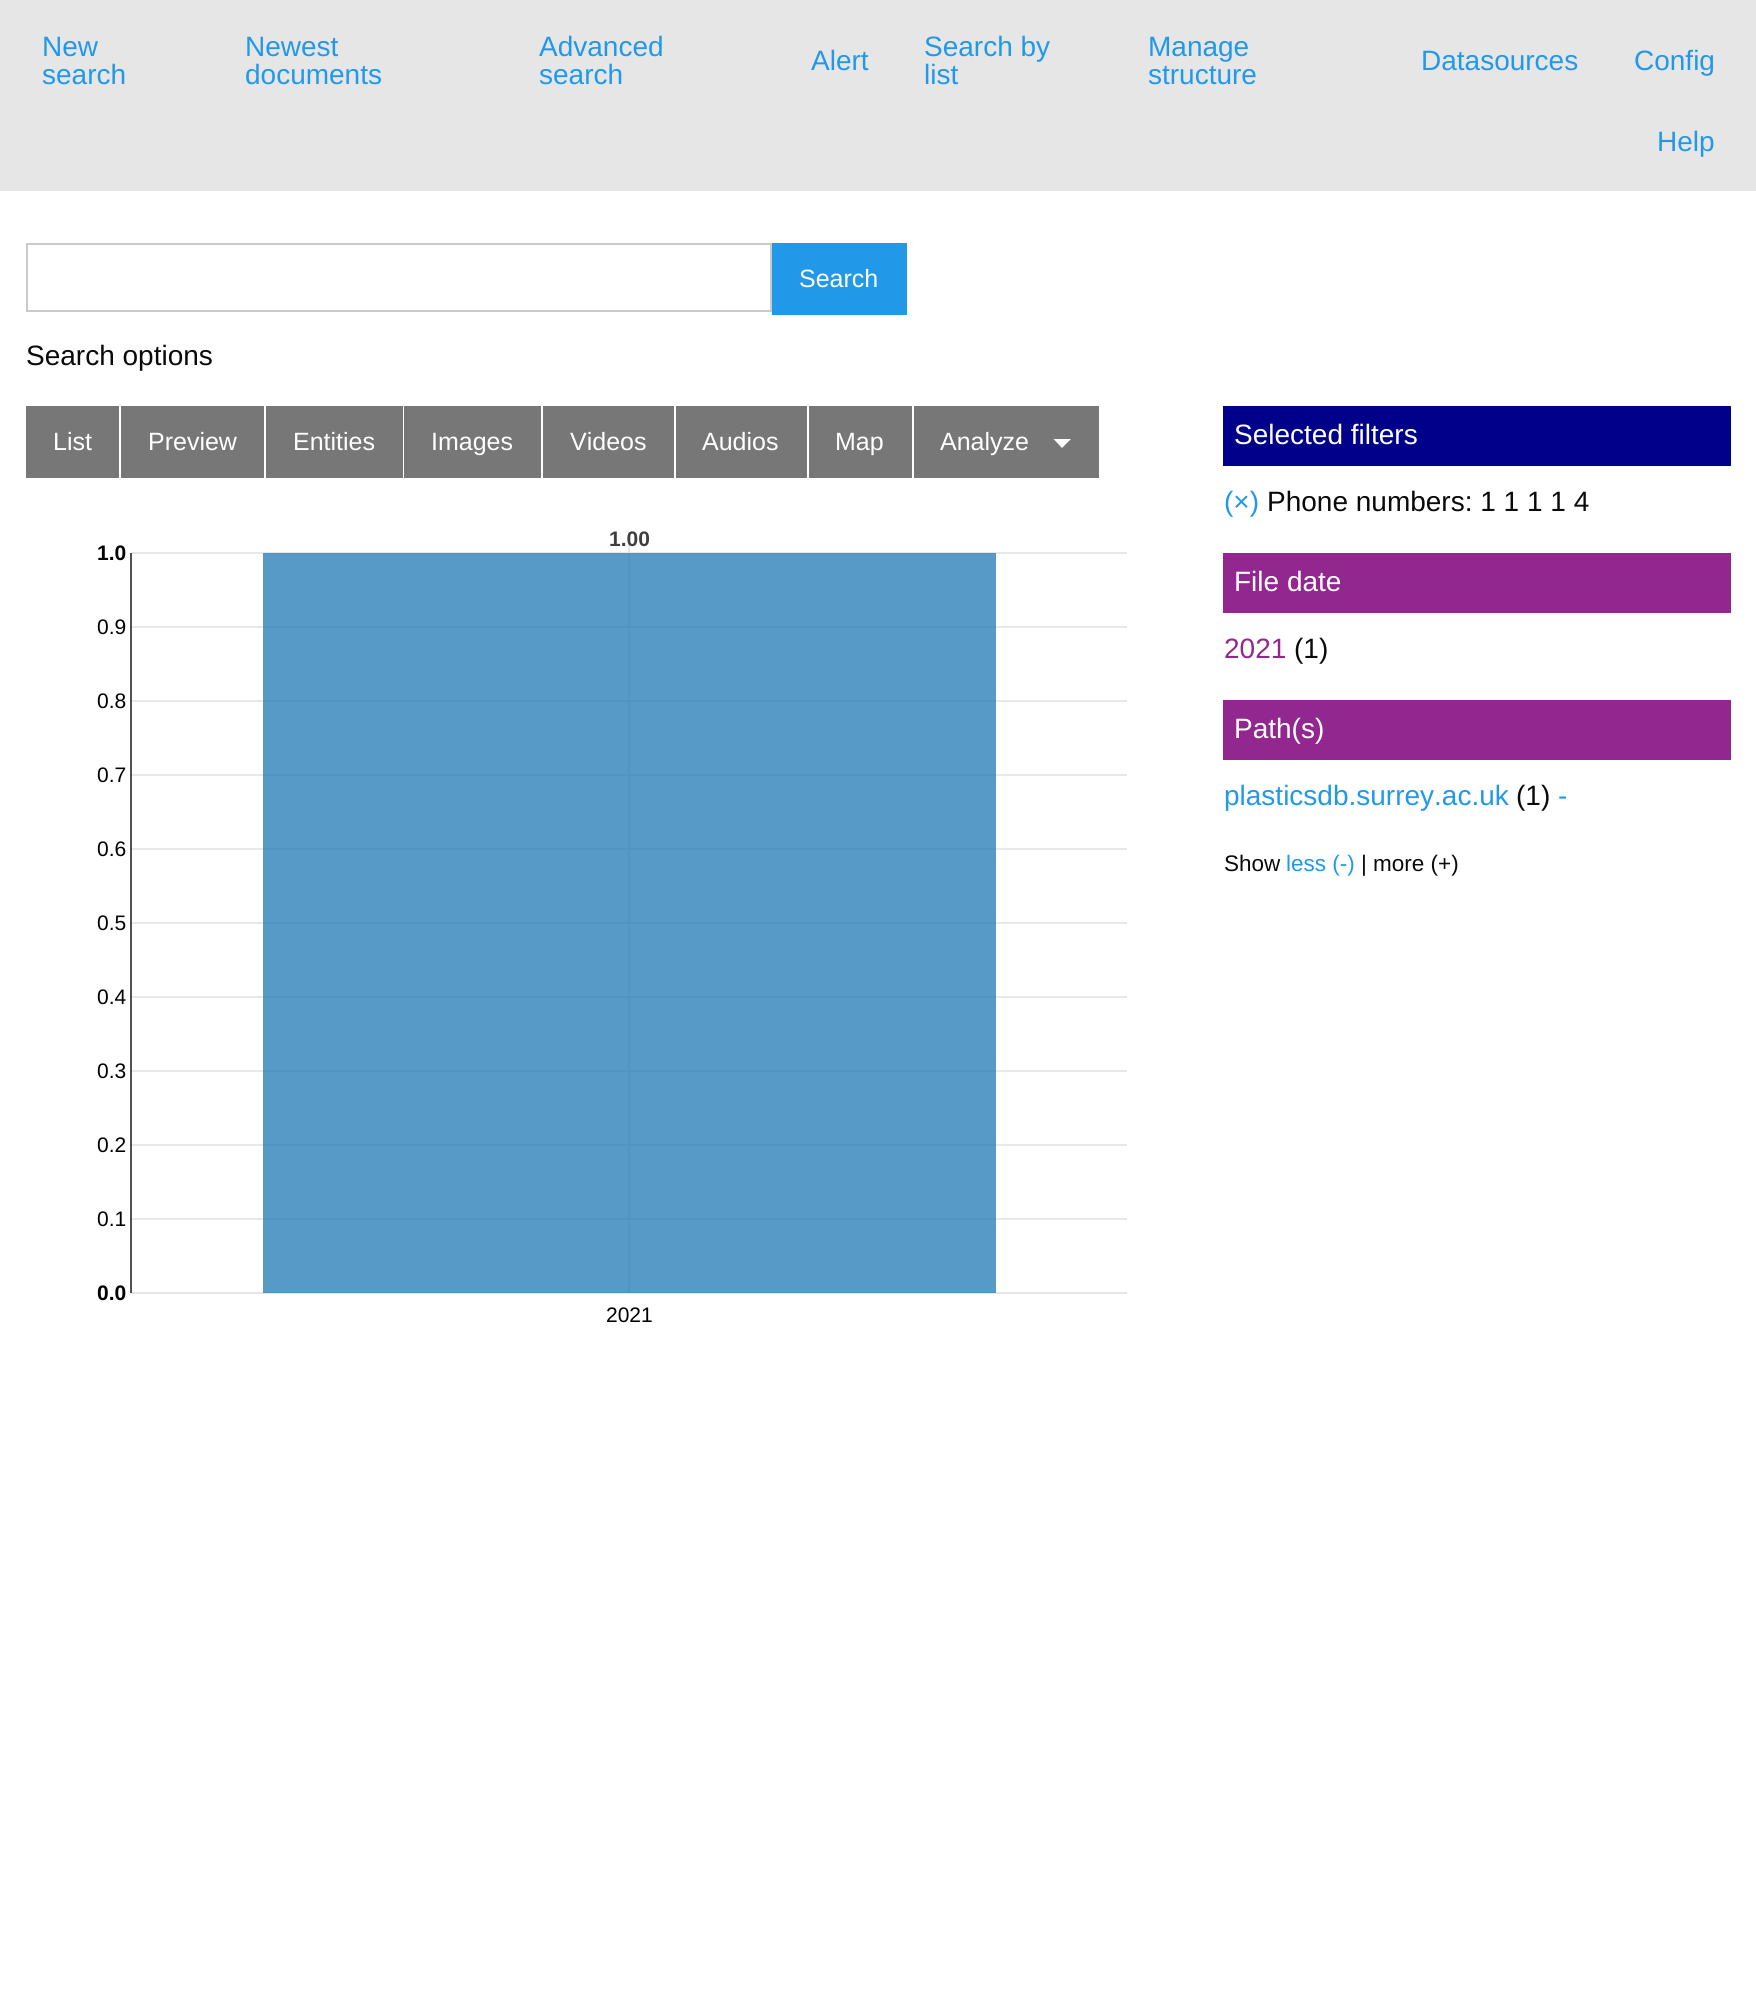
import math
import cairo

surface = cairo.ImageSurface(cairo.Format.RGB24, 1756, 2007)
ctx = cairo.Context(surface)
options = cairo.FontOptions()
options.set_hint_metrics(cairo.HintMetrics.OFF)
options.set_hint_style(cairo.HintStyle.NONE)
ctx.set_font_options(options)
ctx.set_miter_limit(4)


def ink(r, g, b):
    ctx.set_source_rgb(r / 255, g / 255, b / 255)


def write(x, y, s, family, size, color, bold=False, italic=False):
    ctx.select_font_face(family, cairo.FontSlant.ITALIC if italic else cairo.FontSlant.NORMAL, cairo.FontWeight.BOLD if bold else cairo.FontWeight.NORMAL)
    ctx.set_font_size(size)
    ink(*color)
    ctx.move_to(x, y)
    ctx.show_text(s)


def block(x, y, w, h, *color):
    ink(*color)
    ctx.rectangle(x, y, w, h)
    ctx.fill()


s1 = dict(family="Liberation Sans", size=28, color=(33, 153, 232))
s2 = dict(family="Liberation Sans", size=25, color=(254, 254, 254))
s3 = dict(family="Liberation Sans", size=28, color=(10, 10, 10))
s4 = dict(family="Liberation Sans", size=21, color=(63, 63, 63), bold=True)
s5 = dict(family="Liberation Sans", size=21, color=(0, 0, 0), bold=True)
s6 = dict(family="Liberation Sans", size=21, color=(0, 0, 0))
s7 = dict(family="Liberation Sans", size=28, color=(254, 254, 254))
s8 = dict(family="Liberation Sans", size=28, color=(146, 39, 143))
s9 = dict(family="Liberation Sans", size=22.5, color=(10, 10, 10))
s10 = dict(family="Liberation Sans", size=22.5, color=(33, 153, 232))

ink(255, 255, 255)
ctx.paint()
block(263, 554, 733, 738, 87, 153, 199)
block(130, 553, 2, 740, 82, 82, 82)
block(131, 552, 996, 2, 232, 232, 232)
block(263, 553, 733, 1, 81, 147, 193)
block(131, 553, 1, 1, 74, 74, 74)
block(131, 626, 996, 2, 232, 232, 232)
block(263, 626, 733, 2, 81, 147, 193)
block(131, 626, 1, 2, 74, 74, 74)
block(131, 700, 996, 2, 232, 232, 232)
block(263, 700, 733, 2, 81, 147, 193)
block(131, 700, 1, 2, 74, 74, 74)
block(131, 774, 996, 2, 232, 232, 232)
block(263, 774, 733, 2, 81, 147, 193)
block(131, 774, 1, 2, 74, 74, 74)
block(131, 848, 996, 2, 232, 232, 232)
block(263, 848, 733, 2, 81, 147, 193)
block(131, 848, 1, 2, 74, 74, 74)
block(131, 922, 996, 2, 232, 232, 232)
block(263, 922, 733, 2, 81, 147, 193)
block(131, 922, 1, 2, 74, 74, 74)
block(131, 996, 996, 2, 232, 232, 232)
block(263, 996, 733, 2, 81, 147, 193)
block(131, 996, 1, 2, 74, 74, 74)
block(131, 1070, 996, 2, 232, 232, 232)
block(263, 1070, 733, 2, 81, 147, 193)
block(131, 1070, 1, 2, 74, 74, 74)
block(131, 1144, 996, 2, 232, 232, 232)
block(263, 1144, 733, 2, 81, 147, 193)
block(131, 1144, 1, 2, 74, 74, 74)
block(131, 1218, 996, 2, 232, 232, 232)
block(263, 1218, 733, 2, 81, 147, 193)
block(131, 1218, 1, 2, 74, 74, 74)
block(0, 0, 1756, 191, 230, 230, 230)
write(42, 56, "New", **s1)
write(42, 84, "search", **s1)
write(245, 56, "Newest", **s1)
write(245, 84, "documents", **s1)
write(539, 56, "Advanced", **s1)
write(539, 84, "search", **s1)
write(811, 70, "Alert", **s1)
write(924, 56, "Search by", **s1)
write(924, 84, "list", **s1)
write(1148, 56, "Manage", **s1)
write(1148, 84, "structure", **s1)
write(1421, 70, "Datasources", **s1)
write(1634, 70, "Config", **s1)
write(1657, 151, "Help", **s1)
ctx.rectangle(27, 244, 744, 67)
ink(202, 202, 202)
ctx.stroke()
block(772, 243, 135, 72, 33, 153, 232)
write(799, 287, "Search", **s2)
write(26, 365, "Search options", **s3)
block(26, 406, 93, 72, 119, 119, 119)
write(53, 450, "List", **s2)
block(121, 406, 143, 72, 119, 119, 119)
write(148, 450, "Preview", **s2)
block(266, 406, 137, 72, 119, 119, 119)
write(293, 450, "Entities", **s2)
block(404, 406, 137, 72, 119, 119, 119)
write(431, 450, "Images", **s2)
block(543, 406, 131, 72, 119, 119, 119)
write(570, 450, "Videos", **s2)
block(676, 406, 131, 72, 119, 119, 119)
write(702, 450, "Audios", **s2)
block(809, 406, 103, 72, 119, 119, 119)
write(835, 450, "Map", **s2)
block(914, 406, 185, 72, 119, 119, 119)
write(940, 450, "Analyze", **s2)
ctx.new_path()
ctx.move_to(1053.5, 439)
ctx.line_to(1071, 439)
ctx.line_to(1062, 448)
ctx.close_path()
ctx.fill()
block(628, 532, 2, 20, 232, 232, 232)
block(628, 553, 2, 740, 81, 147, 193)
block(628, 552, 2, 1, 229, 229, 229)
block(131, 1292, 996, 2, 229, 229, 229)
block(263, 1292, 733, 1, 81, 147, 192)
block(131, 1292, 1, 1, 73, 73, 73)
write(609, 546, "1.00", **s4)
write(97, 560, "1.0", **s5)
write(97, 634, "0.9", **s6)
write(97, 708, "0.8", **s6)
write(97, 782, "0.7", **s6)
write(97, 856, "0.6", **s6)
write(97, 930, "0.5", **s6)
write(97, 1004, "0.4", **s6)
write(97, 1078, "0.3", **s6)
write(97, 1152, "0.2", **s6)
write(97, 1226, "0.1", **s6)
write(97, 1300, "0.0", **s5)
write(606, 1322, "2021", **s6)
block(1223, 406, 508, 60, 0, 0, 139)
write(1234, 444, "Selected filters", **s7)
write(1224, 511, "(×)", **s1)
write(1267, 511, "Phone numbers: 1 1 1 1 4", **s3)
block(1223, 553, 508, 60, 146, 39, 143)
write(1234, 591, "File date", **s7)
write(1224, 658, "2021", **s8)
write(1294, 658, "(1)", **s3)
block(1223, 700, 508, 60, 146, 39, 143)
write(1234, 738, "Path(s)", **s7)
write(1224, 805, "plasticsdb.surrey.ac.uk", **s1)
write(1516, 805, "(1)", **s3)
write(1558, 805, "-", **s1)
write(1224, 871, "Show", **s9)
write(1286, 871, "less (-)", **s10)
write(1361, 871, "| more (+)", **s9)
surface.write_to_png("screenshot.png")
